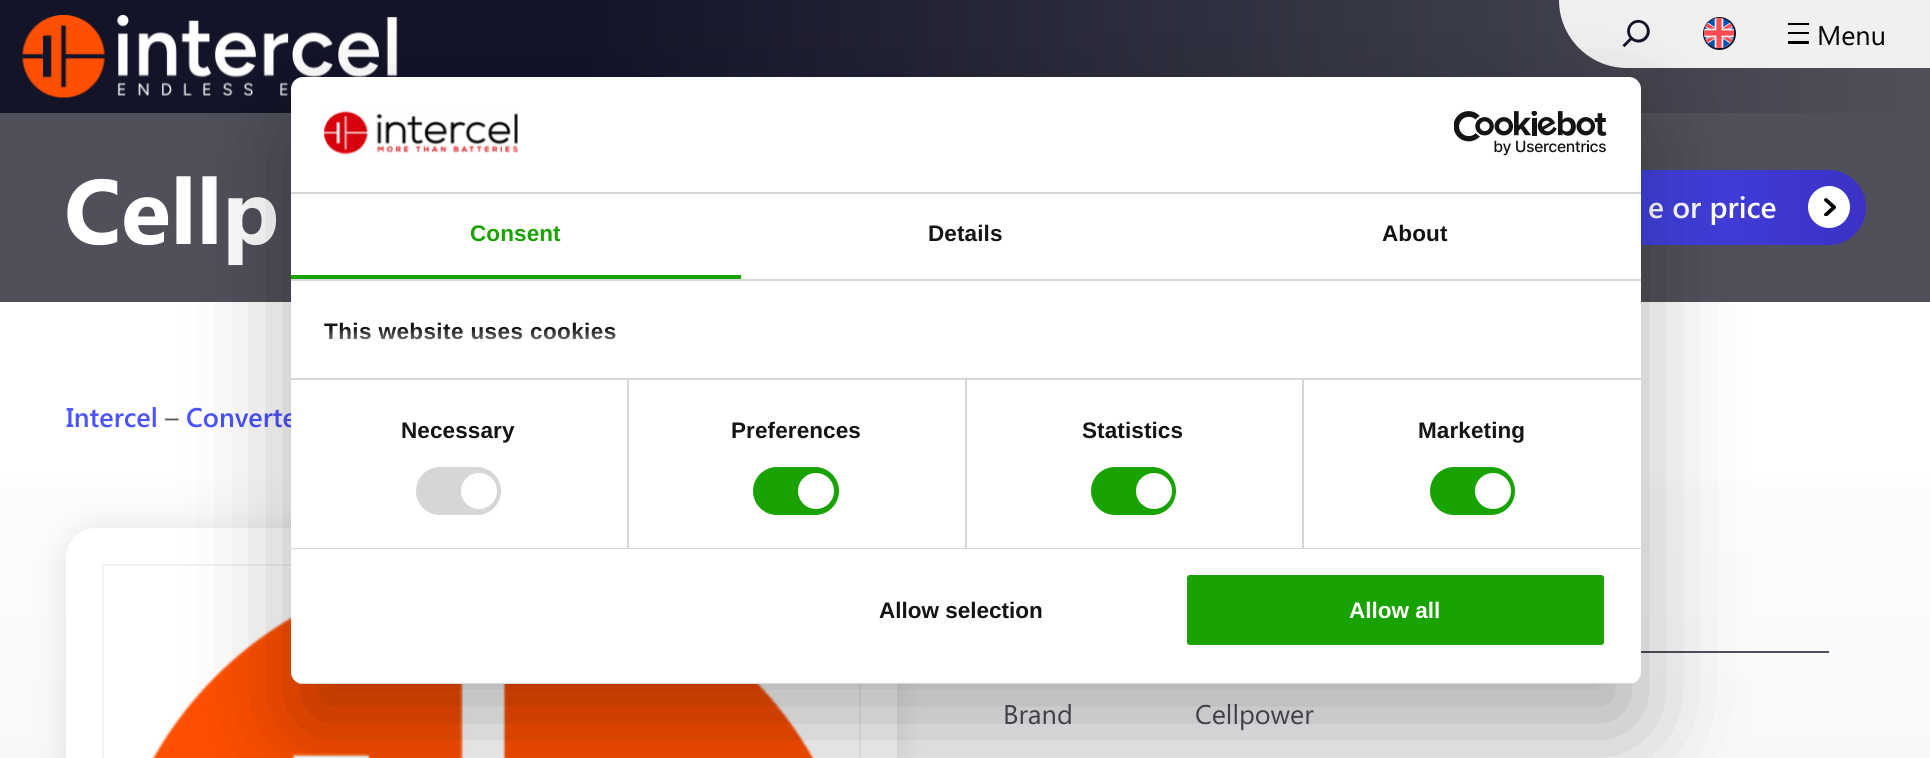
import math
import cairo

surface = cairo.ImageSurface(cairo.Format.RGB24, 1930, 758)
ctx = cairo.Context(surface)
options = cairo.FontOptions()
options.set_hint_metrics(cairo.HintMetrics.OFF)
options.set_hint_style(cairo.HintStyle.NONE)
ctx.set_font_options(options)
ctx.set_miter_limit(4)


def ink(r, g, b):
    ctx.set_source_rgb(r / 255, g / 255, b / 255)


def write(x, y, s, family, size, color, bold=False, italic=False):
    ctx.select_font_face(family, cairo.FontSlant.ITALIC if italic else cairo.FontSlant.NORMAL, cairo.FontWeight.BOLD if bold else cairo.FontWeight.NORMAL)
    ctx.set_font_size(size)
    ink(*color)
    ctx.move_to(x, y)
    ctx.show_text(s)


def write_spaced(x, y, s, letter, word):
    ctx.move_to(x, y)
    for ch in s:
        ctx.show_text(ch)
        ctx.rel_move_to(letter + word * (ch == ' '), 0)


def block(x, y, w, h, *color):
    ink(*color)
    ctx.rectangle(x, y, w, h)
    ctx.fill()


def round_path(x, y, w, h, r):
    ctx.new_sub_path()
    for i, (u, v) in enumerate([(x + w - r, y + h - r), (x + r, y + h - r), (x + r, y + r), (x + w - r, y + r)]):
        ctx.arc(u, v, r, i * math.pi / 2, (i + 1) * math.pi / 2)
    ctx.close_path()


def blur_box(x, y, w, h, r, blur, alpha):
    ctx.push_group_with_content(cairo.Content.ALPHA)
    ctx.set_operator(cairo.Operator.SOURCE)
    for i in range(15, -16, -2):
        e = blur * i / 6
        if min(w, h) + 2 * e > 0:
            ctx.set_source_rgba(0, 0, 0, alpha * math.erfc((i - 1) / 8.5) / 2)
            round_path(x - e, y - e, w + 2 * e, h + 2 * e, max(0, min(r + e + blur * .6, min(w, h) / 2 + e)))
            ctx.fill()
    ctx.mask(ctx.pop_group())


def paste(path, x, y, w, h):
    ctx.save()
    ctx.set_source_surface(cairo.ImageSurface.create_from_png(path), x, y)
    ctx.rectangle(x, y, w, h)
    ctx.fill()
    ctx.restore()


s1 = dict(family="Segoe UI", size=27, color=(0, 0, 0))
s2 = dict(family="Segoe UI", size=91.5, color=(255, 255, 255), bold=True)
s3 = dict(family="Segoe UI SemiBold", size=30, color=(255, 255, 255))
s4 = dict(family="Segoe UI SemiBold", size=27, color=(74, 83, 255))
s5 = dict(family="Segoe UI", size=27, color=(79, 80, 89))
s6 = dict(family="Liberation Sans", size=22.5, color=(20, 20, 20), bold=True)
s7 = dict(family="Liberation Sans", size=22.5, color=(255, 255, 255), bold=True)

ink(255, 255, 255)
ctx.paint()
gradient = cairo.LinearGradient(0, 56, 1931, 56)
gradient.add_color_stop_rgba(0.3, 0.078, 0.078, 0.161, 1)
gradient.add_color_stop_rgba(1, 0.31, 0.314, 0.349, 1)
ctx.set_source(gradient)
ctx.rectangle(0, 0, 1930, 113)
ctx.fill()
paste("pic1.png", 22, 15, 376, 83)
ink(240, 240, 240)
ctx.new_path()
ctx.move_to(1559, 0)
ctx.line_to(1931, 0)
ctx.line_to(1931, 68)
ctx.line_to(1627, 68)
ctx.curve_to(1589.5, 68, 1559, 37.5, 1559, 0)
ctx.close_path()
ctx.fill()
paste("pic2.png", 1622, 19, 28, 29)
ctx.arc(1719.5, 33.5, 15.5, 0, 2 * math.pi)
ink(20, 20, 41)
ctx.stroke()
paste("pic3.png", 1704, 18, 30, 30)
block(1788, 23, 21, 2, 0, 0, 0)
block(1788, 32, 21, 2, 0, 0, 0)
block(1788, 41, 21, 3, 0, 0, 0)
write(1817, 45, "Menu", **s1)
block(0, 113, 1930, 189, 79, 80, 89)
write(64, 244, "Cellp", **s2)
gradient = cairo.LinearGradient(1418, 207, 1866, 207)
gradient.add_color_stop_rgba(0, 0.29, 0.325, 1, 1)
gradient.add_color_stop_rgba(1, 0.231, 0.192, 0.773, 1)
ctx.set_source(gradient)
round_path(1418, 170, 448, 75, 37.5)
ctx.fill()
write(1648, 218, "e or price", **s3)
ctx.new_path()
ctx.arc(1829, 207, 21, 0, 2 * math.pi)
ctx.fill()
paste("pic4.png", 1824, 198, 13, 18)
gradient = cairo.LinearGradient(965, 337, 965, 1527)
gradient.add_color_stop_rgba(0, 1, 1, 1, 1)
gradient.add_color_stop_rgba(1, 0.918, 0.925, 0.941, 1)
ctx.set_source(gradient)
ctx.rectangle(0, 479, 1930, 279)
ctx.fill()
write(66, 427, "Intercel", **s4)
write(165, 427, "–", **s5)
write(186, 427, "Converte", **s4)
ink(0, 0, 0)
blur_box(66, 528, 831, 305, 30, 15, 0.1)
ink(255, 255, 255)
round_path(66, 528, 831, 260, 30)
ctx.fill()
ctx.rectangle(103, 565, 757, 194)
ink(242, 242, 242)
ctx.stroke()
paste("pic5.png", 152, 616, 663, 142)
block(1641, 651, 188, 2, 79, 80, 89)
write(1003, 724, "Brand", **s5)
write(1195, 724, "Cellpower", **s5)
ink(0, 0, 0)
blur_box(291, 125, 1350, 607, 12, 51, 0.3)
ink(255, 255, 255)
round_path(291, 77, 1350, 607, 12)
ctx.fill()
block(291, 192, 1350, 2, 214, 214, 214)
paste("pic6.png", 324, 111, 194, 44)
paste("pic7.png", 1454, 111, 153, 45)
block(291, 279, 1350, 2, 214, 214, 214)
block(291, 275, 450, 4, 24, 163, 0)
ctx.select_font_face("Liberation Sans", cairo.FontSlant.NORMAL, cairo.FontWeight.BOLD)
ctx.set_font_size(22.5)
write_spaced(470, 241, "Consent", 0.1, 0)
ink(20, 20, 20)
write_spaced(928, 241, "Details", 0.1, 0)
write_spaced(1382, 241, "About", 0.1, 0)
block(291, 378, 1350, 2, 214, 214, 214)
ink(20, 20, 20)
write_spaced(324, 339, "This website uses cookies", 0.4, 0)
gradient = cairo.LinearGradient(950, 377, 950, 328)
gradient.add_color_stop_rgba(0, 1, 1, 1, 1)
gradient.add_color_stop_rgba(0.5, 1, 1, 1, 0.8)
gradient.add_color_stop_rgba(1, 1, 1, 1, 0)
ctx.set_source(gradient)
ctx.rectangle(329, 329, 286, 11)
ctx.fill()
block(291, 548, 1350, 1, 214, 214, 214)
block(627, 380, 2, 168, 214, 214, 214)
ink(20, 20, 20)
write_spaced(401, 438, "Necessary", 0.1, 0)
ink(214, 214, 214)
round_path(416, 467, 85, 48, 24)
ctx.fill()
ink(255, 255, 255)
ctx.arc(479, 491, 18, 0, 2 * math.pi)
ctx.fill()
block(965, 380, 2, 168, 214, 214, 214)
ink(20, 20, 20)
write_spaced(731, 438, "Preferences", 0.1, 0)
ink(24, 163, 0)
round_path(753, 467, 86, 48, 24)
ctx.fill()
ink(255, 255, 255)
ctx.arc(816, 491, 18, 0, 2 * math.pi)
ctx.fill()
block(1302, 380, 2, 168, 214, 214, 214)
ink(20, 20, 20)
write_spaced(1082, 438, "Statistics", 0.1, 0)
ink(24, 163, 0)
round_path(1091, 467, 85, 48, 24)
ctx.fill()
ink(255, 255, 255)
ctx.arc(1154, 491, 18, 0, 2 * math.pi)
ctx.fill()
ink(20, 20, 20)
write_spaced(1418, 438, "Marketing", 0.1, 0)
ink(24, 163, 0)
round_path(1430, 467, 85, 48, 24)
ctx.fill()
ink(255, 255, 255)
ctx.arc(1493, 491, 18, 0, 2 * math.pi)
ctx.fill()
ctx.save()
round_path(291, 77, 1350, 607, 12)
ctx.clip()
block(291, 683, 1350, 1, 214, 214, 214)
ctx.restore()
write(879, 618, "Allow selection", **s6)
ink(24, 163, 0)
round_path(1185.5, 573.5, 420, 73, 4.5)
ctx.fill_preserve()
ink(255, 255, 255)
ctx.set_line_width(3)
ctx.stroke()
write(1349, 618, "Allow all", **s7)
surface.write_to_png("screenshot.png")
